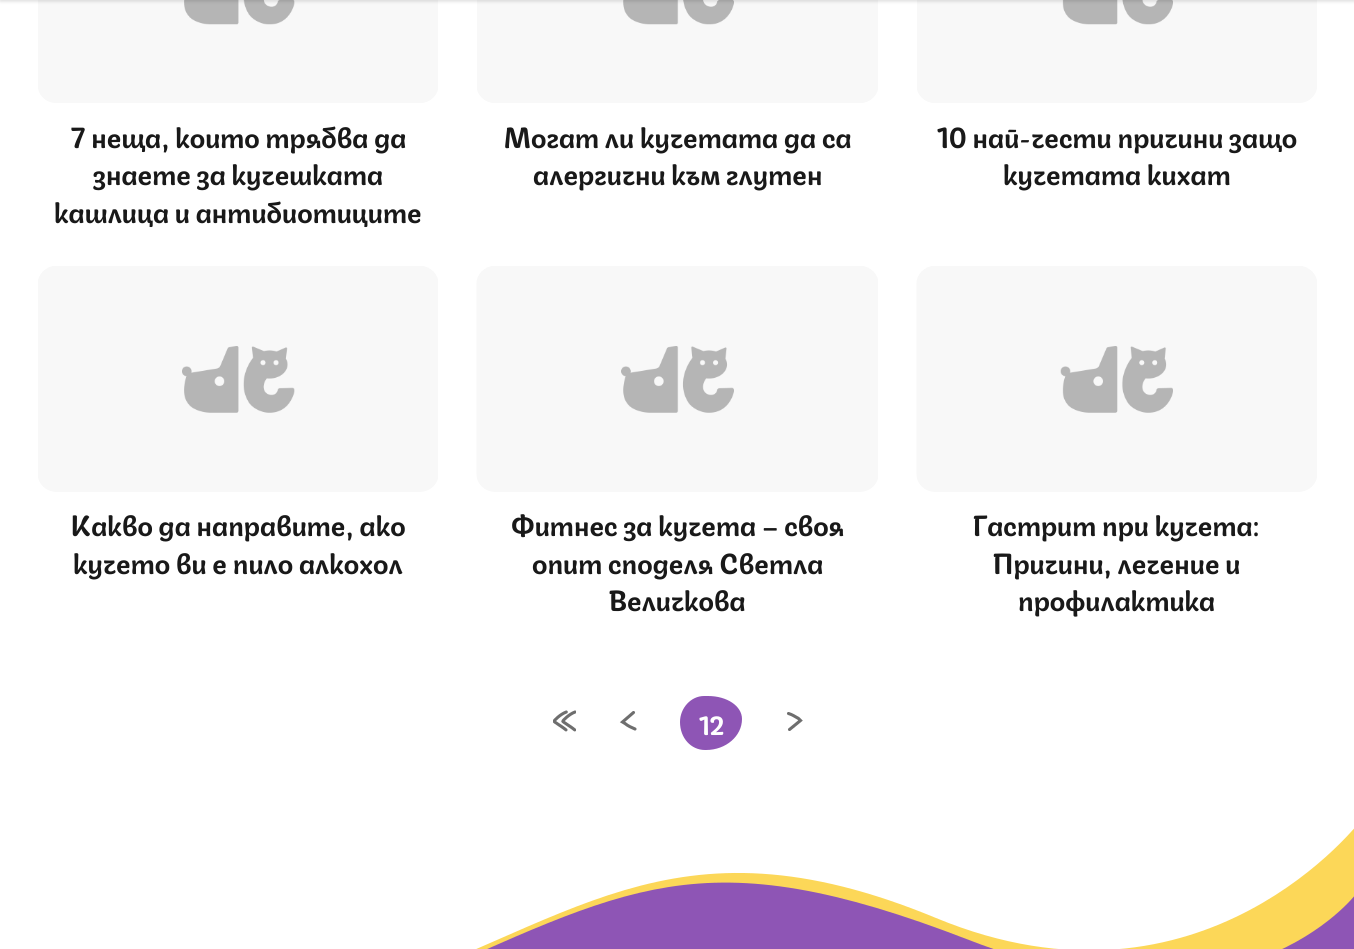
import math
import cairo

surface = cairo.ImageSurface(cairo.Format.RGB24, 1354, 949)
ctx = cairo.Context(surface)
options = cairo.FontOptions()
options.set_hint_metrics(cairo.HintMetrics.OFF)
options.set_hint_style(cairo.HintStyle.NONE)
ctx.set_font_options(options)
ctx.set_miter_limit(4)


def ink(r, g, b):
    ctx.set_source_rgb(r / 255, g / 255, b / 255)


def write(x, y, s, family, size, color, bold=False, italic=False):
    ctx.select_font_face(family, cairo.FontSlant.ITALIC if italic else cairo.FontSlant.NORMAL, cairo.FontWeight.BOLD if bold else cairo.FontWeight.NORMAL)
    ctx.set_font_size(size)
    ink(*color)
    ctx.move_to(x, y)
    ctx.show_text(s)


def round_path(x, y, w, h, r):
    ctx.new_sub_path()
    for i, (u, v) in enumerate([(x + w - r, y + h - r), (x + r, y + h - r), (x + r, y + r), (x + w - r, y + r)]):
        ctx.arc(u, v, r, i * math.pi / 2, (i + 1) * math.pi / 2)
    ctx.close_path()


def blur_box(x, y, w, h, r, blur, alpha):
    ctx.push_group_with_content(cairo.Content.ALPHA)
    ctx.set_operator(cairo.Operator.SOURCE)
    for i in range(15, -16, -2):
        e = blur * i / 6
        if min(w, h) + 2 * e > 0:
            ctx.set_source_rgba(0, 0, 0, alpha * math.erfc((i - 1) / 8.5) / 2)
            round_path(x - e, y - e, w + 2 * e, h + 2 * e, max(0, min(r + e + blur * .6, min(w, h) / 2 + e)))
            ctx.fill()
    ctx.mask(ctx.pop_group())


def paste(path, x, y, w, h):
    ctx.save()
    ctx.set_source_surface(cairo.ImageSurface.create_from_png(path), x, y)
    ctx.rectangle(x, y, w, h)
    ctx.fill()
    ctx.restore()


s1 = dict(family="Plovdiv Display", size=27.5, color=(25, 25, 25), bold=True)
s2 = dict(family="Plovdiv Display", size=25, color=(255, 255, 255), bold=True)

ink(255, 255, 255)
ctx.paint()
paste("pic1.png", 38, 0, 400, 103)
paste("pic2.png", 477, 0, 401, 103)
paste("pic3.png", 917, 0, 400, 103)
ink(0, 0, 0)
blur_box(0, -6, 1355, 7, 0, 2, 0.16)
write(71, 148, "7 неща, които трябва да", **s1)
write(93, 185, "знаете за кучешката", **s1)
write(54, 223, "кашлица и антибиотиците", **s1)
write(504, 148, "Могат ли кучетата да са", **s1)
write(533, 185, "алергични към глутен", **s1)
write(937, 148, "10 най-чести причини защо", **s1)
write(1003, 185, "кучетата кихат", **s1)
paste("pic4.png", 38, 266, 400, 226)
write(70, 536, "Какво да направите, ако", **s1)
write(73, 574, "кучето ви е пило алкохол", **s1)
paste("pic5.png", 476, 266, 402, 226)
write(511, 536, "Фитнес за кучета – своя", **s1)
write(532, 574, "опит споделя Светла", **s1)
write(609, 611, "Величкова", **s1)
paste("pic6.png", 916, 266, 401, 226)
write(973, 536, "Гастрит при кучета:", **s1)
write(993, 574, "Причини, лечение и", **s1)
write(1018, 611, "профилактика", **s1)
paste("pic7.png", 553, 710, 23, 22)
ctx.new_path()
ctx.move_to(635, 729)
ctx.curve_to(631.5, 727.5, 628, 726, 625, 723.5)
ctx.line_to(622.5, 722)
ctx.line_to(633.5, 712.5)
ink(110, 110, 110)
ctx.set_line_width(3.1)
ctx.set_line_cap(cairo.LineCap.ROUND)
ctx.stroke()
ink(142, 85, 181)
ctx.new_path()
ctx.move_to(704, 696)
ctx.line_to(708, 696)
ctx.curve_to(727, 696, 742, 706, 742, 719)
ctx.curve_to(742, 736, 726, 750, 706, 750)
ctx.line_to(705, 750)
ctx.curve_to(691, 750, 680, 738, 680, 722)
ctx.curve_to(680, 708, 691, 696, 704, 696)
ctx.close_path()
ctx.fill()
write(699, 735, "12", **s2)
ctx.new_path()
ctx.move_to(788.5, 713.5)
ctx.curve_to(792, 714.5, 795, 716.5, 798.5, 718.5)
ctx.line_to(800.5, 720.5)
ctx.line_to(789.5, 729.5)
ink(110, 110, 110)
ctx.stroke()
ink(252, 215, 88)
ctx.new_path()
ctx.move_to(-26, 934)
ctx.curve_to(-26, 934, 115, 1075, 343, 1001)
ctx.curve_to(571, 927, 668, 807, 936, 918)
ctx.curve_to(1204, 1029, 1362, 819, 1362, 819)
ctx.line_to(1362, 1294)
ctx.line_to(-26, 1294)
ctx.close_path()
ctx.fill()
ink(142, 85, 181)
ctx.new_path()
ctx.move_to(-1, 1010)
ctx.curve_to(-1, 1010, 173, 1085, 401, 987)
ctx.curve_to(629, 888, 698, 835, 969, 940)
ctx.curve_to(1241, 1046, 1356, 894, 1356, 894)
ctx.line_to(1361, 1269)
ctx.line_to(-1, 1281)
ctx.close_path()
ctx.fill()
surface.write_to_png("screenshot.png")
